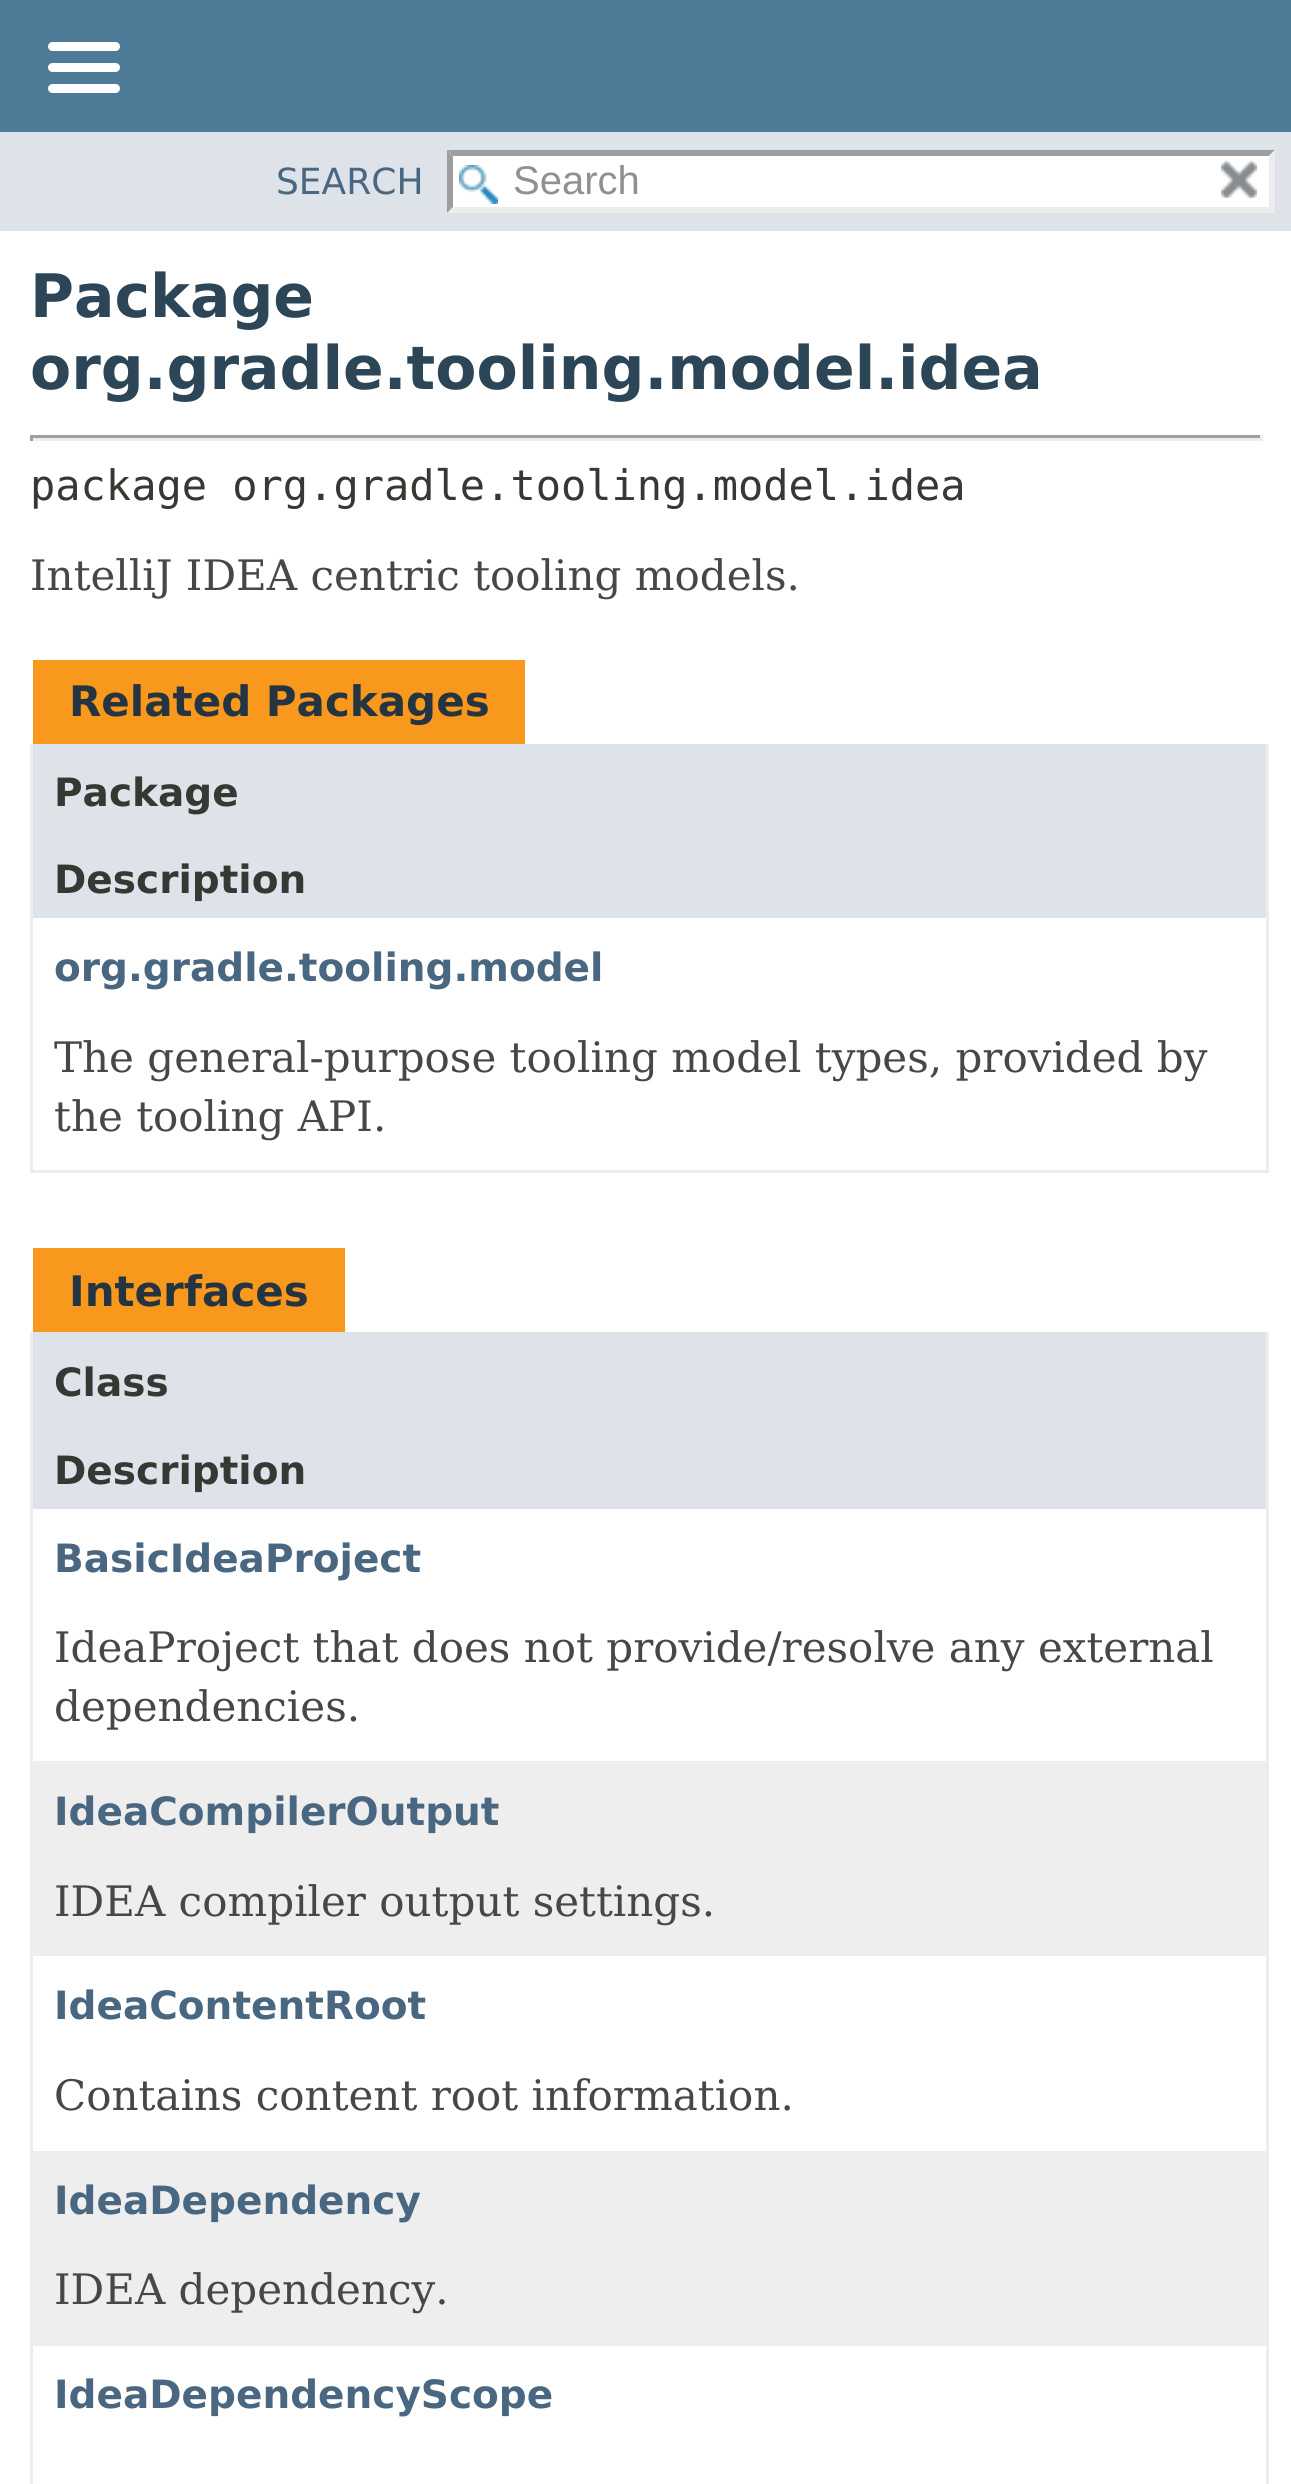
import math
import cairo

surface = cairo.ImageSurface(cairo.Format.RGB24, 1291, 2484)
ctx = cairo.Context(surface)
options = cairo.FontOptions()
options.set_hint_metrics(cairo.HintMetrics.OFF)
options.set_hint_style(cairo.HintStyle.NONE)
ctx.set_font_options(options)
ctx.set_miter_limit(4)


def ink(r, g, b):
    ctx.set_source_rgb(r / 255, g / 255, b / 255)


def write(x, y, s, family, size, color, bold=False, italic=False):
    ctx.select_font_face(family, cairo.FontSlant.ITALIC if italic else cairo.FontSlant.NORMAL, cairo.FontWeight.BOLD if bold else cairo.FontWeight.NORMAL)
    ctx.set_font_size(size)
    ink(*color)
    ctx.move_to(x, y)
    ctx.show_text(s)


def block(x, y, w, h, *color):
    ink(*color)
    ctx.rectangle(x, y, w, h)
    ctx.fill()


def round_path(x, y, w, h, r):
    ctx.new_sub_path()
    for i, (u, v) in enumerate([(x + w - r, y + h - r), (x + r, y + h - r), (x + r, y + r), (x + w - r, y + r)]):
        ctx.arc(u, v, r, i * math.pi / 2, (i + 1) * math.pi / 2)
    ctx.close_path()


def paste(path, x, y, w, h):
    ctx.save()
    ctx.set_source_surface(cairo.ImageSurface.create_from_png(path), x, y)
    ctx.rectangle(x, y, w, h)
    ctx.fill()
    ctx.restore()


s1 = dict(family="DejaVu Sans", size=36, color=(74, 103, 130))
s2 = dict(family="Liberation Sans", size=40, color=(144, 144, 144))
s3 = dict(family="DejaVu Sans", size=60, color=(44, 69, 87), bold=True)
s4 = dict(family="DejaVu Sans Mono", size=42, color=(53, 56, 51))
s5 = dict(family="DejaVu Serif", size=42, color=(71, 71, 71))
s6 = dict(family="DejaVu Sans", size=42, color=(37, 52, 65), bold=True)
s7 = dict(family="DejaVu Sans", size=39, color=(53, 56, 51), bold=True)
s8 = dict(family="DejaVu Sans", size=39, color=(74, 103, 130), bold=True)

ink(255, 255, 255)
ctx.paint()
block(0, 0, 1291, 132, 77, 122, 151)
ink(255, 255, 255)
round_path(48, 42, 72, 9, 4.5)
ctx.fill()
round_path(48, 63, 72, 9, 4.5)
ctx.fill()
round_path(48, 84, 72, 9, 4.5)
ctx.fill()
block(0, 132, 1291, 99, 222, 227, 233)
write(276, 194, "SEARCH", **s1)
block(447, 150, 828, 63, 255, 255, 255)
paste("pic1.png", 459, 165, 39, 39)
ink(158, 158, 158)
ctx.new_path()
ctx.move_to(447, 150)
ctx.line_to(1275, 150)
ctx.line_to(1269, 156)
ctx.line_to(453, 156)
ctx.close_path()
ctx.fill()
ink(237, 237, 237)
ctx.new_path()
ctx.move_to(1275, 150)
ctx.line_to(1275, 213)
ctx.line_to(1269, 207)
ctx.line_to(1269, 156)
ctx.close_path()
ctx.fill()
ctx.new_path()
ctx.move_to(1275, 213)
ctx.line_to(447, 213)
ctx.line_to(453, 207)
ctx.line_to(1269, 207)
ctx.close_path()
ctx.fill()
ink(158, 158, 158)
ctx.new_path()
ctx.move_to(447, 213)
ctx.line_to(447, 150)
ctx.line_to(453, 156)
ctx.line_to(453, 207)
ctx.close_path()
ctx.fill()
write(513, 194, "Search", **s2)
paste("pic2.png", 1221, 160, 36, 38)
write(30, 317, "Package", **s3)
write(30, 389, "org.gradle.tooling.model.idea", **s3)
block(30, 435, 1233, 3, 159, 159, 159)
block(1260, 435, 3, 6, 238, 238, 238)
block(30, 438, 1233, 3, 238, 238, 238)
block(30, 435, 3, 6, 159, 159, 159)
write(30, 500, "package org.gradle.tooling.model.idea", **s4)
write(30, 590, "IntelliJ IDEA centric tooling models.", **s5)
block(33, 660, 492, 84, 248, 152, 29)
write(69, 716, "Related Packages", **s6)
block(1266, 744, 3, 429, 237, 237, 237)
block(30, 1170, 1239, 3, 237, 237, 237)
block(30, 744, 3, 429, 237, 237, 237)
block(33, 744, 1233, 174, 222, 227, 233)
write(54, 806, "Package", **s7)
write(54, 893, "Description", **s7)
write(54, 981, "org.gradle.tooling.model", **s8)
write(54, 1072, "The general-purpose tooling model types, provided by", **s5)
write(54, 1131, "the tooling API.", **s5)
block(33, 1248, 312, 84, 248, 152, 29)
write(69, 1306, "Interfaces", **s6)
block(1266, 1332, 3, 1152, 237, 237, 237)
block(30, 1332, 3, 1152, 237, 237, 237)
block(33, 1332, 1233, 177, 222, 227, 233)
write(54, 1396, "Class", **s7)
write(54, 1484, "Description", **s7)
write(54, 1572, "BasicIdeaProject", **s8)
write(54, 1662, "IdeaProject that does not provide/resolve any external", **s5)
write(54, 1721, "dependencies.", **s5)
block(33, 1761, 1233, 195, 238, 238, 239)
write(54, 1825, "IdeaCompilerOutput", **s8)
write(54, 1916, "IDEA compiler output settings.", **s5)
write(54, 2019, "IdeaContentRoot", **s8)
write(54, 2110, "Contains content root information.", **s5)
block(33, 2151, 1233, 195, 238, 238, 239)
write(54, 2214, "IdeaDependency", **s8)
write(54, 2304, "IDEA dependency.", **s5)
write(54, 2408, "IdeaDependencyScope", **s8)
surface.write_to_png("screenshot.png")
